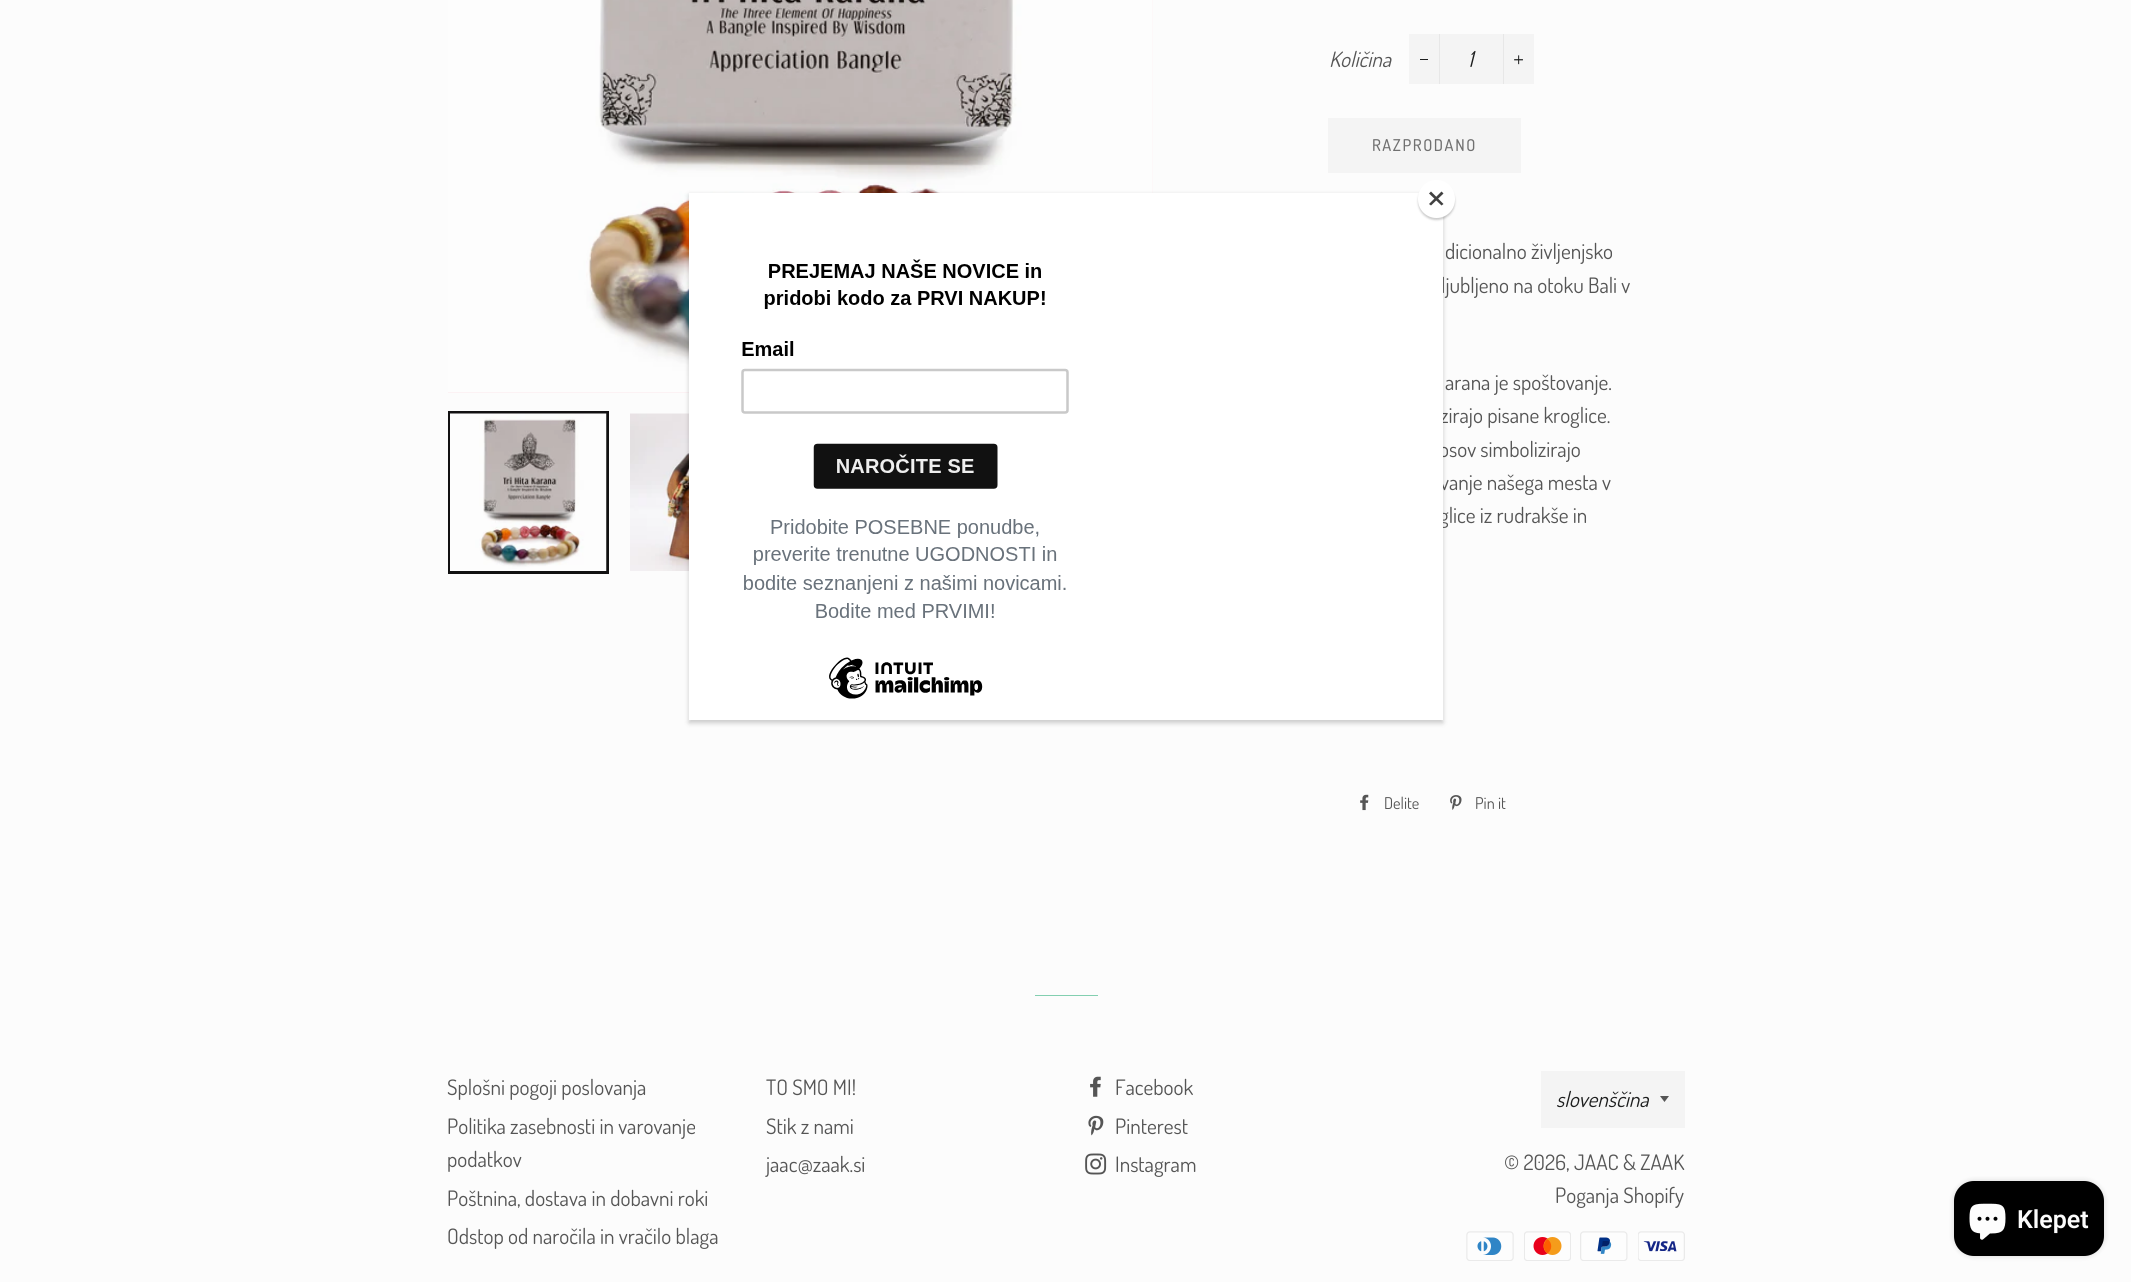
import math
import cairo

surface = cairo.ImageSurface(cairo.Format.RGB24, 2131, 1282)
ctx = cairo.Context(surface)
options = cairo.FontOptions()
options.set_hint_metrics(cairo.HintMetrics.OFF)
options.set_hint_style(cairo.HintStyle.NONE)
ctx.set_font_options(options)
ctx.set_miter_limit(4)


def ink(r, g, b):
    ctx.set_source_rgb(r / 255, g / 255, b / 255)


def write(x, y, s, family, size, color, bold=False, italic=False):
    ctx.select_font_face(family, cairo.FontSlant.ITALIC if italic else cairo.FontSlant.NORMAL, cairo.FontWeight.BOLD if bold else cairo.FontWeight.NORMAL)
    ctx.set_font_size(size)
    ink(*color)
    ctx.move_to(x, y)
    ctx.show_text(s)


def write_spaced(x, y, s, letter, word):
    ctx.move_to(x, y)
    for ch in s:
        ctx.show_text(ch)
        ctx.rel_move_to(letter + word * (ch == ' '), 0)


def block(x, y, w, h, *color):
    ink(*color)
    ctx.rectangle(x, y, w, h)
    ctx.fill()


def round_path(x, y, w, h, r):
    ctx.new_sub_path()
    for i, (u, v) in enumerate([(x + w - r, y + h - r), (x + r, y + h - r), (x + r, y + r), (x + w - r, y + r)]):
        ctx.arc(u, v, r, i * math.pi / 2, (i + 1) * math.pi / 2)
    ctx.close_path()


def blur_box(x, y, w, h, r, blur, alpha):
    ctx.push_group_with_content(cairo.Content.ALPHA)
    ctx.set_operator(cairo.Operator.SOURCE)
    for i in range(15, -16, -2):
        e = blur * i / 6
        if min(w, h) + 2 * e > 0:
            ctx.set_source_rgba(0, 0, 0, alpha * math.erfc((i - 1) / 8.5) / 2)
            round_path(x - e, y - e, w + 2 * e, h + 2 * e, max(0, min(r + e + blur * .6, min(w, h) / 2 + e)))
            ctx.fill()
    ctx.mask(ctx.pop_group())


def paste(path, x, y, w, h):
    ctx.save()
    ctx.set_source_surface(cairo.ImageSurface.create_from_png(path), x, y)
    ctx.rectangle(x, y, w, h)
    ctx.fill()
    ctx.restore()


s1 = dict(family="Dosis", size=21.25, color=(85, 85, 85), italic=True)
s2 = dict(family="Dosis", size=22, color=(28, 29, 29), italic=True)
s3 = dict(family="Dosis", size=21.25, color=(85, 85, 85))
s4 = dict(family="Dosis", size=16.25, color=(85, 85, 85))
s5 = dict(family="Dosis", size=21.25, color=(28, 29, 29), italic=True)
s6 = dict(family="Roboto SemiBold", size=25, color=(252, 252, 252))

ink(252, 252, 252)
ctx.paint()
block(448, 0, 705, 393, 252, 242, 244)
paste("pic1.png", 448, 0, 705, 392)
ctx.rectangle(449.5, 412.5, 158, 160)
ink(18, 17, 18)
ctx.set_line_width(3)
ctx.stroke()
paste("pic2.png", 450, 413, 157, 158)
paste("pic3.png", 630, 413, 59, 158)
write(1329, 67, "Količina", **s1)
block(1409, 34, 125, 50, 244, 244, 244)
block(1439, 34, 1, 50, 231, 231, 231)
block(1420, 59, 8, 1, 28, 29, 29)
write(1468, 67, "1", **s2)
block(1503, 34, 1, 50, 231, 231, 231)
paste("pic4.png", 1514, 55, 9, 10)
block(1328, 118, 193, 55, 244, 244, 244)
ctx.select_font_face("Dosis Medium")
ctx.set_font_size(16.25)
ink(112, 112, 112)
write_spaced(1372, 151, "RAZPRODANO", 1.6, 0)
write(1445, 259, "dicionalno življenjsko", **s3)
write(1441, 293, "ljubljeno na otoku Bali v", **s3)
write(1445, 390, "arana je spoštovanje.", **s3)
write(1440, 423, "zirajo pisane kroglice.", **s3)
write(1439, 457, "osov simbolizirajo", **s3)
write(1440, 490, "vanje našega mesta v", **s3)
write(1439, 523, "glice iz rudrakše in", **s3)
paste("pic5.png", 1360, 794, 9, 17)
write(1384, 809, "Delite", **s4)
paste("pic6.png", 1450, 795, 12, 15)
write(1475, 809, "Pin it", **s4)
block(1035, 995, 63, 1, 131, 207, 176)
write(447, 1095, "Splošni pogoji poslovanja", **s3)
write(447, 1134, "Politika zasebnosti in varovanje", **s3)
write(447, 1167, "podatkov", **s3)
write(447, 1206, "Poštnina, dostava in dobavni roki", **s3)
write(447, 1244, "Odstop od naročila in vračilo blaga", **s3)
write(766, 1095, "TO SMO MI!", **s3)
write(766, 1134, "Stik z nami", **s3)
write(766, 1172, "jaac@zaak.si", **s3)
paste("pic7.png", 1090, 1076, 11, 21)
write(1115, 1095, "Facebook", **s3)
paste("pic8.png", 1088, 1115, 16, 21)
write(1115, 1134, "Pinterest", **s3)
paste("pic9.png", 1085, 1153, 22, 22)
write(1115, 1172, "Instagram", **s3)
block(1541, 1071, 144, 57, 244, 244, 244)
ink(85, 85, 85)
ctx.new_path()
ctx.move_to(1660, 1096)
ctx.line_to(1664.5, 1102)
ctx.line_to(1669, 1096)
ctx.close_path()
ctx.fill()
write(1556, 1107, "slovenščina", **s5)
write(1504, 1170, "© 2026, JAAC & ZAAK", **s3)
write(1555, 1203, "Poganja Shopify", **s3)
paste("pic10.png", 1466, 1231, 48, 30)
paste("pic11.png", 1524, 1231, 47, 30)
paste("pic12.png", 1580, 1231, 48, 30)
paste("pic13.png", 1638, 1231, 47, 30)
ink(0, 0, 0)
blur_box(689, 195, 754, 528, 0, 2.5, 0.2)
paste("pic14.png", 689, 193, 754, 527)
blur_box(1418, 183, 37, 37, 18.5, 1, 0.2)
ink(255, 255, 255)
round_path(1418, 180, 37, 38, 18.5)
ctx.fill()
ink(65, 65, 65)
ctx.new_path()
ctx.move_to(1441.5, 191.5)
ctx.line_to(1443.5, 193.5)
ctx.line_to(1431, 205.5)
ctx.line_to(1429, 204)
ctx.close_path()
ctx.fill()
ctx.new_path()
ctx.move_to(1429, 193.5)
ctx.line_to(1431, 191.5)
ctx.line_to(1443.5, 204)
ctx.line_to(1441.5, 205.5)
ctx.close_path()
ctx.fill()
ink(0, 0, 0)
blur_box(1954, 1181, 150, 75, 20, 3, 0.15)
ink(0, 0, 0)
round_path(1954, 1181, 150, 75, 20)
ctx.fill()
paste("pic15.png", 1969, 1203, 37, 37)
write(2017, 1228, "Klepet", **s6)
surface.write_to_png("screenshot.png")
